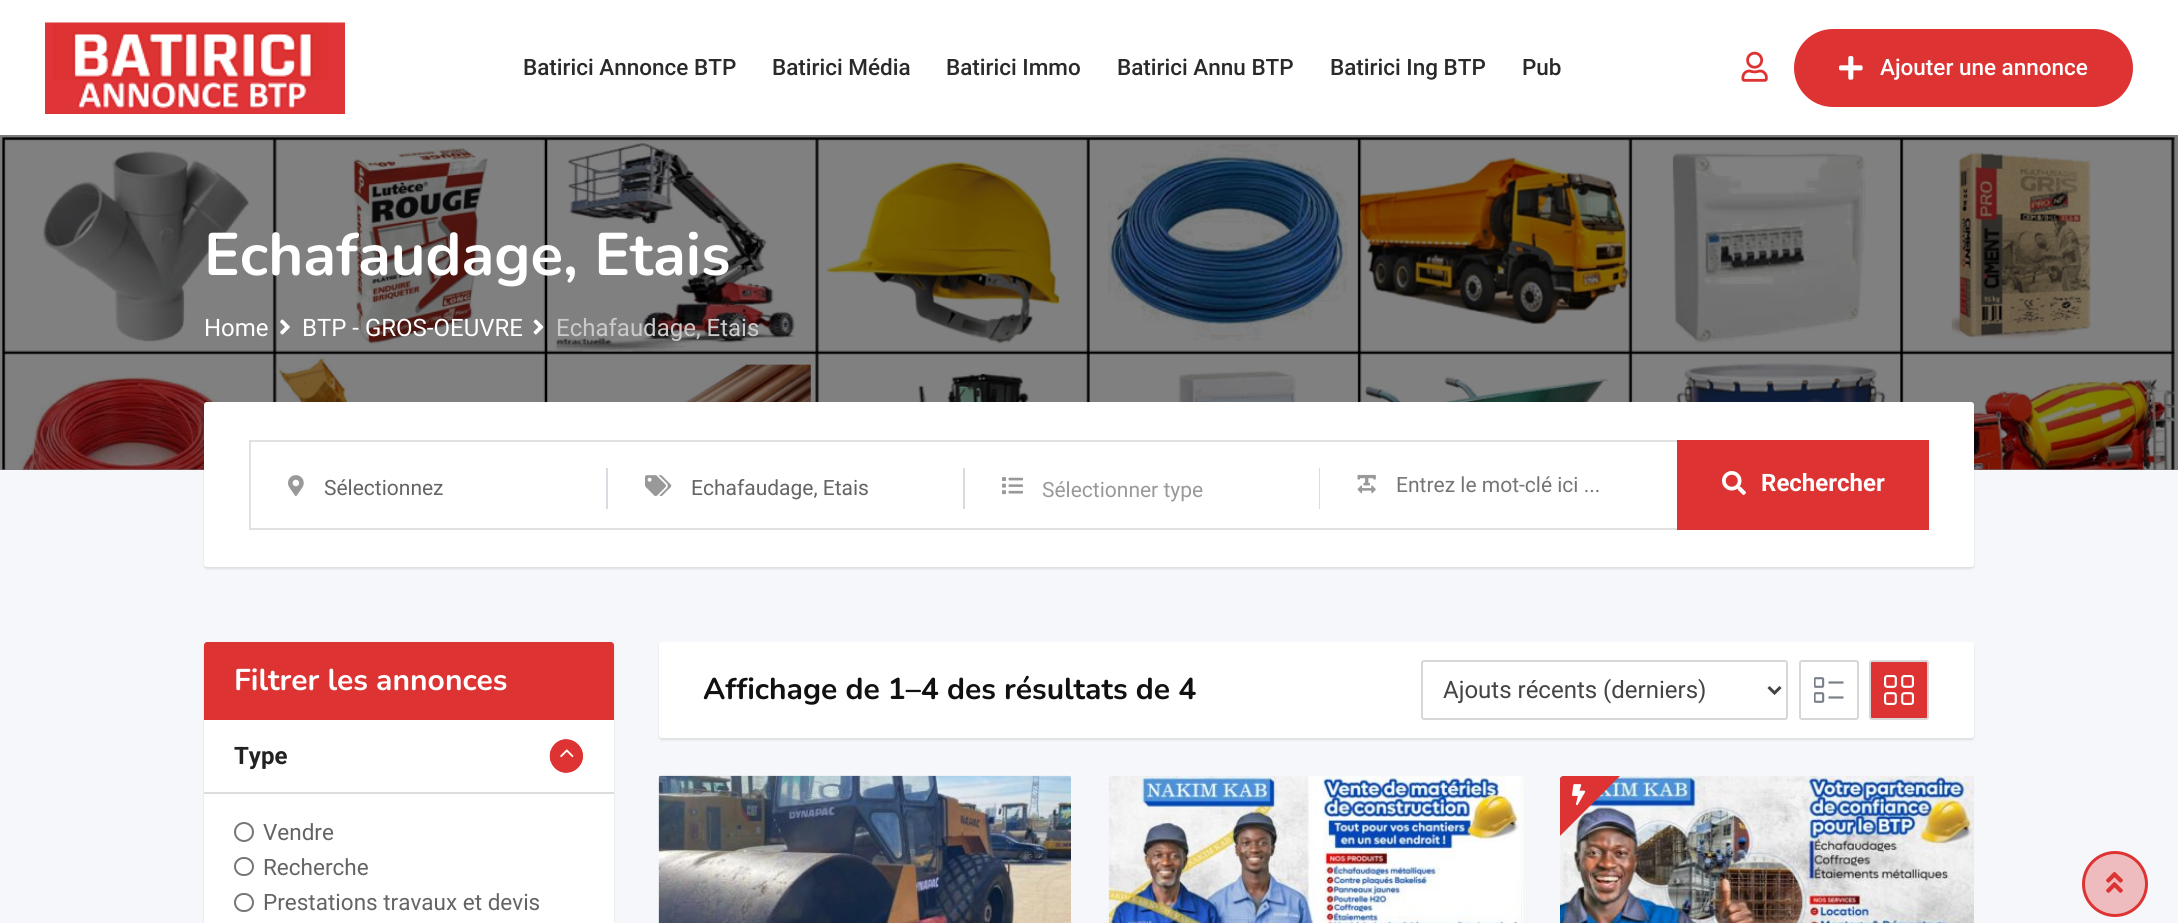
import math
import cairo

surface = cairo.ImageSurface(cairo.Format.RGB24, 2178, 923)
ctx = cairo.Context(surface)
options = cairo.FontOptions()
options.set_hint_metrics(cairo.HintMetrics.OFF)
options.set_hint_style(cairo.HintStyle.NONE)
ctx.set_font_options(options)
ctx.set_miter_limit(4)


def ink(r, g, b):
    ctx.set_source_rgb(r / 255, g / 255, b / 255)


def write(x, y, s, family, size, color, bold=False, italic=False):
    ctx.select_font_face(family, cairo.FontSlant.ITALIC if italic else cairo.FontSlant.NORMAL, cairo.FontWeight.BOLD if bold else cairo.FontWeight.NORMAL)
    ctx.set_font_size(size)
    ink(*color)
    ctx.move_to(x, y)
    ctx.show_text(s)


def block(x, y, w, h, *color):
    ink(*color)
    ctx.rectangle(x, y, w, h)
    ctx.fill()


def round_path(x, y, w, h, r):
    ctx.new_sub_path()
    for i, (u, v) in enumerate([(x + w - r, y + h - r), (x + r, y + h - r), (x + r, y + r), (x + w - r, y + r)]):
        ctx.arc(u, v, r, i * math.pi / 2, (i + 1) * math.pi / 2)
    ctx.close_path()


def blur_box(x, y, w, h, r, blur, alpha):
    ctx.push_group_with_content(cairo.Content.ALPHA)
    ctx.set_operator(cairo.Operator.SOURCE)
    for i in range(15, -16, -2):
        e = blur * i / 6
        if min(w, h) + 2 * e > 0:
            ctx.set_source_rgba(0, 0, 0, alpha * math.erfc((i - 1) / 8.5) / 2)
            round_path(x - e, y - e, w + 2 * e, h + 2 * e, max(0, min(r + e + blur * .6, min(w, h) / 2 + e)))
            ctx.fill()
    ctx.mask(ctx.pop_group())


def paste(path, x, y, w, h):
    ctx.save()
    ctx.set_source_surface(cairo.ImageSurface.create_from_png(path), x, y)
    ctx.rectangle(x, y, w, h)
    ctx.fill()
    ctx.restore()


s1 = dict(family="Roboto Medium", size=22.5, color=(42, 42, 42))
s2 = dict(family="Roboto Medium", size=22.5, color=(255, 255, 255))
s3 = dict(family="Nunito ExtraLight", size=60, color=(255, 255, 255))
s4 = dict(family="Roboto", size=24, color=(255, 255, 255))
s5 = dict(family="Roboto", size=24, color=(202, 202, 202))
s6 = dict(family="Roboto", size=21, color=(100, 100, 100))
s7 = dict(family="Roboto", size=21, color=(153, 153, 153))
s8 = dict(family="Roboto", size=21, color=(117, 117, 117))
s9 = dict(family="Roboto", size=24, color=(255, 255, 255), bold=True)
s10 = dict(family="Nunito ExtraLight", size=30, color=(255, 255, 255))
s11 = dict(family="Roboto", size=24, color=(34, 34, 34), bold=True)
s12 = dict(family="Roboto", size=22.5, color=(100, 100, 100))
s13 = dict(family="Nunito ExtraLight", size=30, color=(17, 17, 17))
s14 = dict(family="Roboto", size=24, color=(68, 68, 68))

ink(255, 255, 255)
ctx.paint()
paste("pic1.png", 45, 22, 300, 92)
write(523, 75, "Batirici Annonce BTP", **s1)
write(772, 75, "Batirici Média", **s1)
write(946, 75, "Batirici Immo", **s1)
write(1117, 75, "Batirici Annu BTP", **s1)
write(1330, 75, "Batirici Ing BTP", **s1)
write(1522, 75, "Pub", **s1)
paste("pic2.png", 1741, 51, 27, 31)
ink(221, 51, 51)
round_path(1794, 29, 339, 78, 39)
ctx.fill()
paste("pic3.png", 1839, 56, 24, 24)
write(1880, 75, "Ajouter une annonce", **s2)
block(0, 470, 2178, 453, 245, 247, 250)
block(0, 135, 2178, 335, 123, 124, 125)
paste("pic4.png", 2, 137, 2174, 333)
write(204, 275, "Echafaudage, Etais", **s3)
write(204, 336, "Home", **s4)
paste("pic5.png", 280, 319, 10, 16)
write(302, 336, "BTP - GROS-OEUVRE", **s4)
paste("pic6.png", 533, 319, 11, 16)
write(556, 336, "Echafaudage, Etais", **s5)
ink(0, 0, 0)
blur_box(204, 404, 1770, 165, 3, 1, 0.1)
ink(255, 255, 255)
round_path(204, 402, 1770, 165, 3)
ctx.fill()
block(249, 440, 2, 90, 225, 225, 225)
block(251, 440, 1426, 2, 225, 225, 225)
block(251, 528, 1426, 2, 225, 225, 225)
paste("pic7.png", 288, 475, 16, 22)
write(324, 495, "Sélectionnez", **s6)
block(606, 468, 2, 41, 215, 220, 227)
paste("pic8.png", 645, 475, 27, 22)
write(691, 495, "Echafaudage, Etais", **s6)
block(963, 468, 2, 41, 215, 220, 227)
paste("pic9.png", 1002, 477, 21, 18)
write(1042, 497, "Sélectionner type", **s7)
block(1319, 468, 1, 41, 215, 220, 227)
paste("pic10.png", 1357, 474, 19, 20)
write(1396, 492, "Entrez le mot-clé ici ...", **s8)
block(1677, 440, 252, 90, 221, 51, 51)
paste("pic11.png", 1722, 471, 24, 24)
write(1761, 491, "Rechercher", **s9)
ink(0, 0, 0)
blur_box(204, 644, 410, 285, 3, 1, 0.1)
ink(255, 255, 255)
round_path(204, 642, 410, 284, 3)
ctx.fill()
ink(221, 51, 51)
ctx.new_path()
ctx.move_to(207, 642)
ctx.line_to(611, 642)
ctx.curve_to(612.5, 642, 614, 643.5, 614, 645)
ctx.line_to(614, 720)
ctx.line_to(204, 720)
ctx.line_to(204, 645)
ctx.curve_to(204, 643.5, 205.5, 642, 207, 642)
ctx.close_path()
ctx.fill()
write(234, 690, "Filtrer les annonces", **s10)
block(204, 792, 410, 2, 221, 221, 221)
write(234, 764, "Type", **s11)
ink(221, 51, 51)
ctx.new_path()
ctx.move_to(566, 772.5)
ctx.curve_to(557, 772.5, 550, 765, 550, 756)
ctx.curve_to(550, 747, 557, 739.5, 566, 739.5)
ctx.curve_to(575.5, 739.5, 583, 747, 583, 756)
ctx.curve_to(583, 765, 575.5, 772.5, 566, 772.5)
ctx.close_path()
ctx.fill()
ctx.new_path()
ctx.move_to(566, 772)
ctx.curve_to(557.5, 772, 550.5, 764.5, 550.5, 756)
ctx.curve_to(550.5, 747.5, 557.5, 740, 566, 740)
ctx.curve_to(575, 740, 582, 747.5, 582, 756)
ctx.curve_to(582, 764.5, 575, 772, 566, 772)
ctx.close_path()
ctx.set_line_width(1.5)
ctx.stroke()
paste("pic12.png", 560, 749, 14, 9)
ctx.arc(244, 832, 9, 0, 2 * math.pi)
ink(118, 118, 118)
ctx.set_line_width(2)
ctx.stroke()
write(263, 840, "Vendre", **s12)
round_path(235, 858, 18, 17, 8.5)
ink(118, 118, 118)
ctx.stroke()
write(263, 875, "Recherche", **s12)
round_path(235, 894, 18, 17, 8.5)
ink(118, 118, 118)
ctx.stroke()
write(263, 910, "Prestations travaux et devis", **s12)
ink(0, 0, 0)
blur_box(659, 644, 1315, 96, 3, 1, 0.1)
ink(255, 255, 255)
round_path(659, 642, 1315, 96, 3)
ctx.fill()
write(703, 699, "Affichage de 1–4 des résultats de 4", **s13)
round_path(1422, 661, 365, 58, 2)
ink(215, 215, 215)
ctx.stroke()
ctx.new_path()
ctx.move_to(1768.5, 687)
ctx.line_to(1774.5, 693)
ctx.line_to(1780.5, 687)
ink(68, 68, 68)
ctx.set_line_width(3)
ctx.stroke()
write(1443, 698, "Ajouts récents (derniers)", **s14)
round_path(1800, 661, 58, 58, 2)
ink(215, 215, 215)
ctx.set_line_width(2)
ctx.stroke()
paste("pic13.png", 1814, 677, 30, 26)
ink(221, 51, 51)
round_path(1870, 661, 58, 58, 2)
ctx.fill_preserve()
ink(215, 215, 215)
ctx.stroke()
paste("pic14.png", 1884, 675, 30, 30)
paste("pic15.png", 658, 775, 413, 148)
ink(255, 255, 255)
round_path(1109, 776, 414, 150, 3)
ctx.fill()
paste("pic16.png", 1108, 775, 414, 148)
paste("pic17.png", 1560, 775, 414, 148)
ink(221, 51, 51)
ctx.new_path()
ctx.move_to(1563, 776)
ctx.line_to(1620, 776)
ctx.line_to(1560, 836)
ctx.line_to(1560, 778)
ctx.curve_to(1561, 777, 1562, 776, 1563, 776)
ctx.close_path()
ctx.fill()
paste("pic18.png", 1572, 784, 14, 22)
ink(238, 188, 190)
ctx.arc(2115, 884, 31.5, 0, 2 * math.pi)
ctx.fill_preserve()
ink(221, 51, 51)
ctx.set_line_width(3)
ctx.stroke()
paste("pic19.png", 2106, 871, 17, 22)
surface.write_to_png("screenshot.png")
